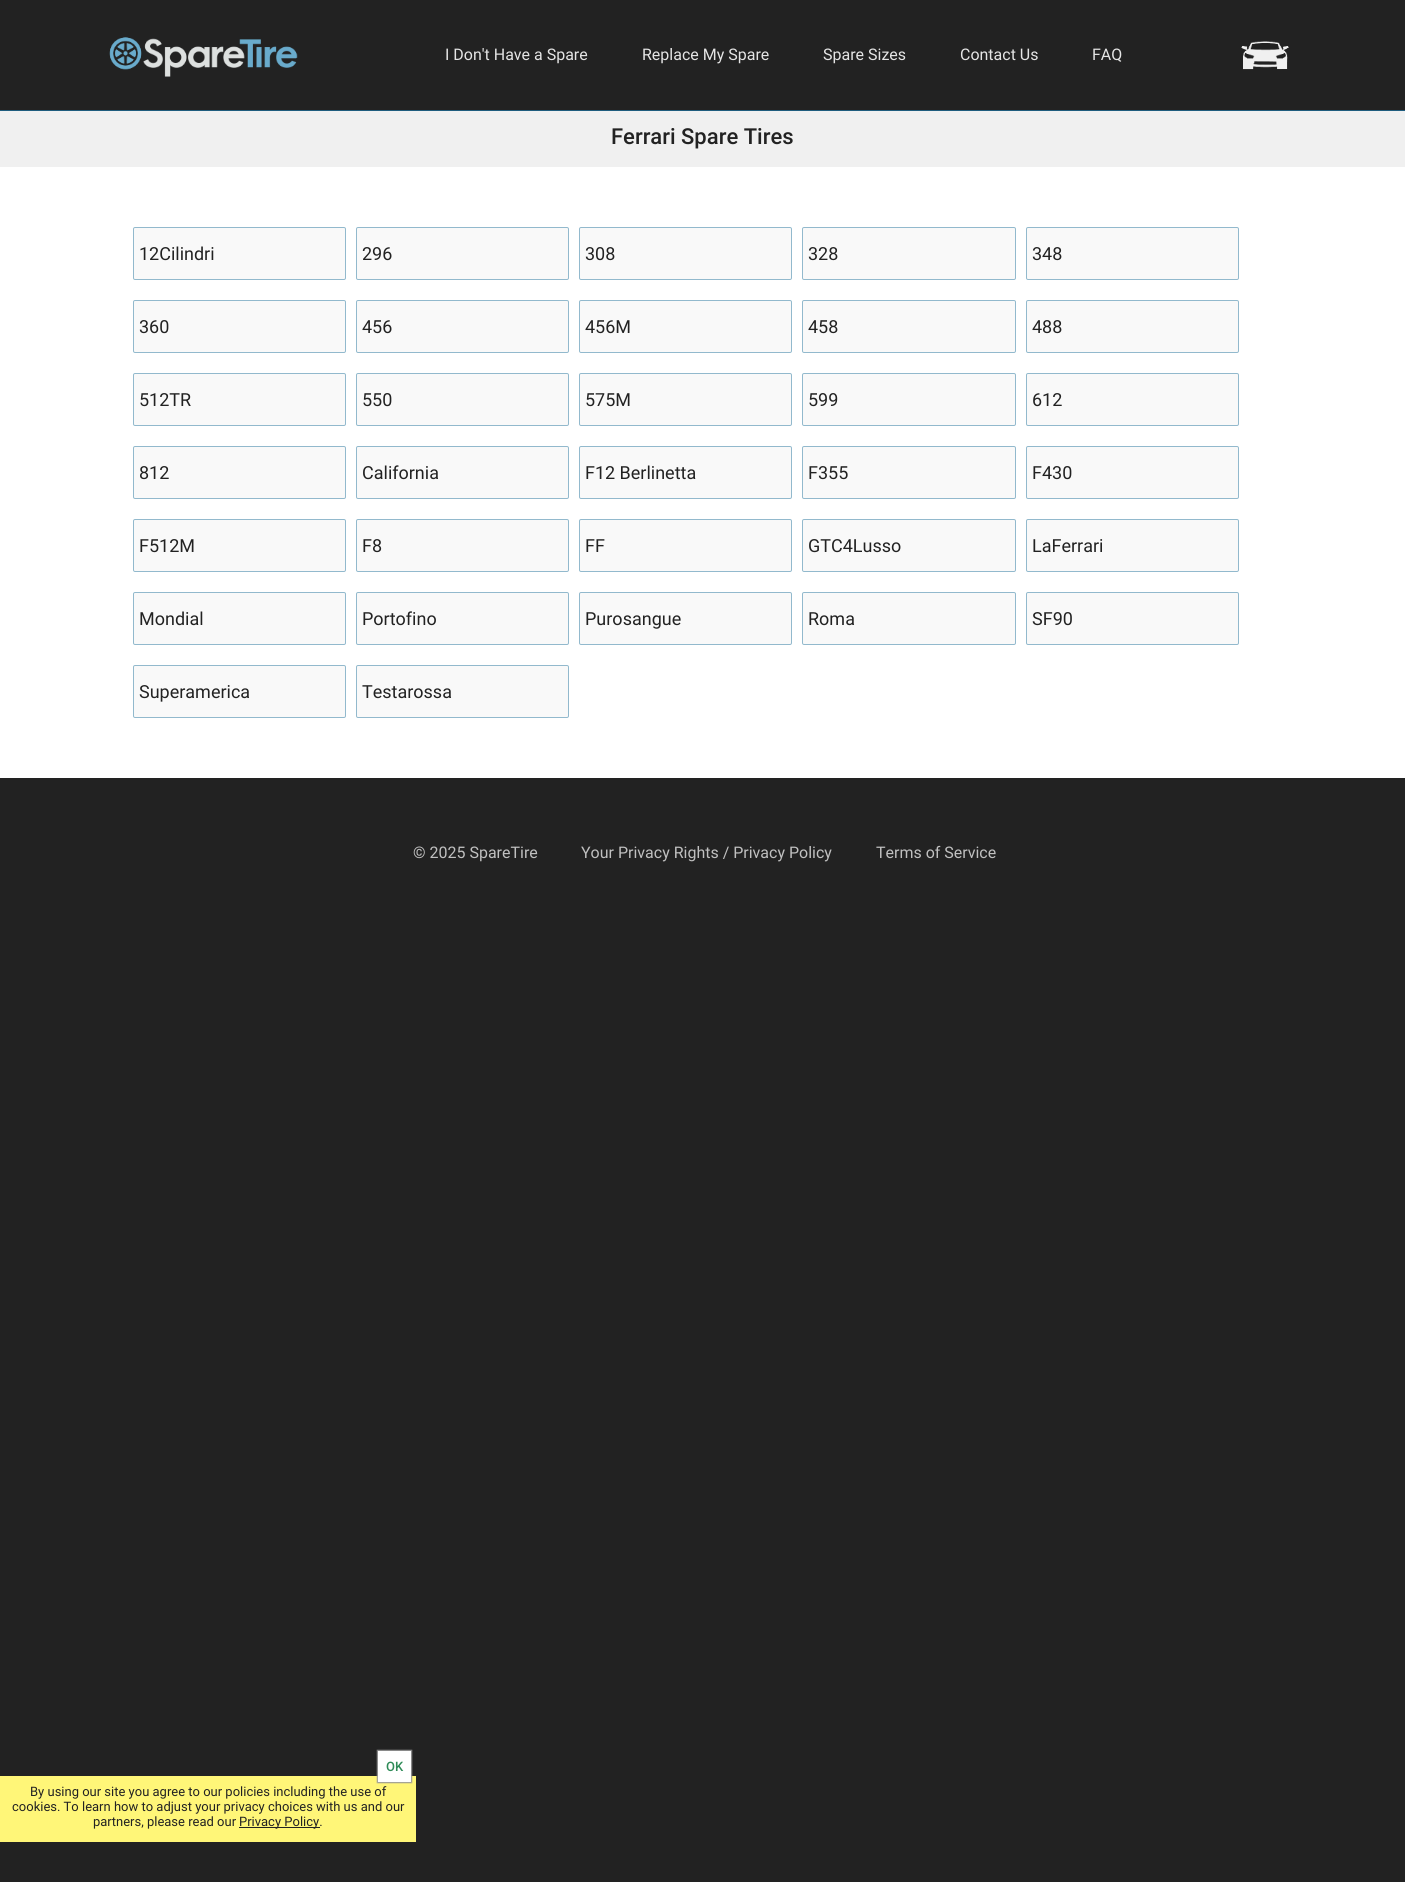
import math
import cairo

surface = cairo.ImageSurface(cairo.Format.RGB24, 1405, 1882)
ctx = cairo.Context(surface)
options = cairo.FontOptions()
options.set_hint_metrics(cairo.HintMetrics.OFF)
options.set_hint_style(cairo.HintStyle.NONE)
ctx.set_font_options(options)
ctx.set_miter_limit(4)


def ink(r, g, b):
    ctx.set_source_rgb(r / 255, g / 255, b / 255)


def write(x, y, s, family, size, color, bold=False, italic=False):
    ctx.select_font_face(family, cairo.FontSlant.ITALIC if italic else cairo.FontSlant.NORMAL, cairo.FontWeight.BOLD if bold else cairo.FontWeight.NORMAL)
    ctx.set_font_size(size)
    ink(*color)
    ctx.move_to(x, y)
    ctx.show_text(s)


def block(x, y, w, h, *color):
    ink(*color)
    ctx.rectangle(x, y, w, h)
    ctx.fill()


def round_path(x, y, w, h, r):
    ctx.new_sub_path()
    for i, (u, v) in enumerate([(x + w - r, y + h - r), (x + r, y + h - r), (x + r, y + r), (x + w - r, y + r)]):
        ctx.arc(u, v, r, i * math.pi / 2, (i + 1) * math.pi / 2)
    ctx.close_path()


def blur_box(x, y, w, h, r, blur, alpha):
    ctx.push_group_with_content(cairo.Content.ALPHA)
    ctx.set_operator(cairo.Operator.SOURCE)
    for i in range(15, -16, -2):
        e = blur * i / 6
        if min(w, h) + 2 * e > 0:
            ctx.set_source_rgba(0, 0, 0, alpha * math.erfc((i - 1) / 8.5) / 2)
            round_path(x - e, y - e, w + 2 * e, h + 2 * e, max(0, min(r + e + blur * .6, min(w, h) / 2 + e)))
            ctx.fill()
    ctx.mask(ctx.pop_group())


def paste(path, x, y, w, h):
    ctx.save()
    ctx.set_source_surface(cairo.ImageSurface.create_from_png(path), x, y)
    ctx.rectangle(x, y, w, h)
    ctx.fill()
    ctx.restore()


s1 = dict(family="Roboto", size=16, color=(229, 229, 229))
s2 = dict(family="Roboto Medium", size=22, color=(34, 34, 34))
s3 = dict(family="Roboto", size=18, color=(34, 34, 34))
s4 = dict(family="Roboto", size=16, color=(192, 192, 192))
s5 = dict(family="Roboto Medium", size=13, color=(46, 139, 87))
s6 = dict(family="Roboto", size=13, color=(34, 34, 34))

ink(34, 34, 34)
ctx.paint()
block(0, 110, 1405, 1, 30, 92, 126)
paste("pic1.png", 109, 37, 189, 40)
write(445, 60, "I Don't Have a Spare", **s1)
write(642, 60, "Replace My Spare", **s1)
write(823, 60, "Spare Sizes", **s1)
write(960, 60, "Contact Us", **s1)
write(1092, 60, "FAQ", **s1)
paste("pic2.png", 1241, 41, 48, 29)
block(0, 167, 1405, 611, 255, 255, 255)
block(0, 111, 1405, 56, 240, 240, 240)
write(611, 144, "Ferrari Spare Tires", **s2)
ink(249, 249, 249)
round_path(133.5, 227.5, 212, 52, 1.5)
ctx.fill_preserve()
ink(146, 185, 205)
ctx.set_line_width(1)
ctx.stroke()
write(139, 260, "12Cilindri", **s3)
ink(249, 249, 249)
round_path(356.5, 227.5, 212, 52, 1.5)
ctx.fill_preserve()
ink(146, 185, 205)
ctx.stroke()
write(362, 260, "296", **s3)
ink(249, 249, 249)
round_path(579.5, 227.5, 212, 52, 1.5)
ctx.fill_preserve()
ink(146, 185, 205)
ctx.stroke()
write(585, 260, "308", **s3)
ink(249, 249, 249)
round_path(802.5, 227.5, 213, 52, 1.5)
ctx.fill_preserve()
ink(146, 185, 205)
ctx.stroke()
write(808, 260, "328", **s3)
ink(249, 249, 249)
round_path(1026.5, 227.5, 212, 52, 1.5)
ctx.fill_preserve()
ink(146, 185, 205)
ctx.stroke()
write(1032, 260, "348", **s3)
ink(249, 249, 249)
round_path(133.5, 300.5, 212, 52, 1.5)
ctx.fill_preserve()
ink(146, 185, 205)
ctx.stroke()
write(139, 333, "360", **s3)
ink(249, 249, 249)
round_path(356.5, 300.5, 212, 52, 1.5)
ctx.fill_preserve()
ink(146, 185, 205)
ctx.stroke()
write(362, 333, "456", **s3)
ink(249, 249, 249)
round_path(579.5, 300.5, 212, 52, 1.5)
ctx.fill_preserve()
ink(146, 185, 205)
ctx.stroke()
write(585, 333, "456M", **s3)
ink(249, 249, 249)
round_path(802.5, 300.5, 213, 52, 1.5)
ctx.fill_preserve()
ink(146, 185, 205)
ctx.stroke()
write(808, 333, "458", **s3)
ink(249, 249, 249)
round_path(1026.5, 300.5, 212, 52, 1.5)
ctx.fill_preserve()
ink(146, 185, 205)
ctx.stroke()
write(1032, 333, "488", **s3)
ink(249, 249, 249)
round_path(133.5, 373.5, 212, 52, 1.5)
ctx.fill_preserve()
ink(146, 185, 205)
ctx.stroke()
write(139, 406, "512TR", **s3)
ink(249, 249, 249)
round_path(356.5, 373.5, 212, 52, 1.5)
ctx.fill_preserve()
ink(146, 185, 205)
ctx.stroke()
write(362, 406, "550", **s3)
ink(249, 249, 249)
round_path(579.5, 373.5, 212, 52, 1.5)
ctx.fill_preserve()
ink(146, 185, 205)
ctx.stroke()
write(585, 406, "575M", **s3)
ink(249, 249, 249)
round_path(802.5, 373.5, 213, 52, 1.5)
ctx.fill_preserve()
ink(146, 185, 205)
ctx.stroke()
write(808, 406, "599", **s3)
ink(249, 249, 249)
round_path(1026.5, 373.5, 212, 52, 1.5)
ctx.fill_preserve()
ink(146, 185, 205)
ctx.stroke()
write(1032, 406, "612", **s3)
ink(249, 249, 249)
round_path(133.5, 446.5, 212, 52, 1.5)
ctx.fill_preserve()
ink(146, 185, 205)
ctx.stroke()
write(139, 479, "812", **s3)
ink(249, 249, 249)
round_path(356.5, 446.5, 212, 52, 1.5)
ctx.fill_preserve()
ink(146, 185, 205)
ctx.stroke()
write(362, 479, "California", **s3)
ink(249, 249, 249)
round_path(579.5, 446.5, 212, 52, 1.5)
ctx.fill_preserve()
ink(146, 185, 205)
ctx.stroke()
write(585, 479, "F12 Berlinetta", **s3)
ink(249, 249, 249)
round_path(802.5, 446.5, 213, 52, 1.5)
ctx.fill_preserve()
ink(146, 185, 205)
ctx.stroke()
write(808, 479, "F355", **s3)
ink(249, 249, 249)
round_path(1026.5, 446.5, 212, 52, 1.5)
ctx.fill_preserve()
ink(146, 185, 205)
ctx.stroke()
write(1032, 479, "F430", **s3)
ink(249, 249, 249)
round_path(133.5, 519.5, 212, 52, 1.5)
ctx.fill_preserve()
ink(146, 185, 205)
ctx.stroke()
write(139, 552, "F512M", **s3)
ink(249, 249, 249)
round_path(356.5, 519.5, 212, 52, 1.5)
ctx.fill_preserve()
ink(146, 185, 205)
ctx.stroke()
write(362, 552, "F8", **s3)
ink(249, 249, 249)
round_path(579.5, 519.5, 212, 52, 1.5)
ctx.fill_preserve()
ink(146, 185, 205)
ctx.stroke()
write(585, 552, "FF", **s3)
ink(249, 249, 249)
round_path(802.5, 519.5, 213, 52, 1.5)
ctx.fill_preserve()
ink(146, 185, 205)
ctx.stroke()
write(808, 552, "GTC4Lusso", **s3)
ink(249, 249, 249)
round_path(1026.5, 519.5, 212, 52, 1.5)
ctx.fill_preserve()
ink(146, 185, 205)
ctx.stroke()
write(1032, 552, "LaFerrari", **s3)
ink(249, 249, 249)
round_path(133.5, 592.5, 212, 52, 1.5)
ctx.fill_preserve()
ink(146, 185, 205)
ctx.stroke()
write(139, 625, "Mondial", **s3)
ink(249, 249, 249)
round_path(356.5, 592.5, 212, 52, 1.5)
ctx.fill_preserve()
ink(146, 185, 205)
ctx.stroke()
write(362, 625, "Portofino", **s3)
ink(249, 249, 249)
round_path(579.5, 592.5, 212, 52, 1.5)
ctx.fill_preserve()
ink(146, 185, 205)
ctx.stroke()
write(585, 625, "Purosangue", **s3)
ink(249, 249, 249)
round_path(802.5, 592.5, 213, 52, 1.5)
ctx.fill_preserve()
ink(146, 185, 205)
ctx.stroke()
write(808, 625, "Roma", **s3)
ink(249, 249, 249)
round_path(1026.5, 592.5, 212, 52, 1.5)
ctx.fill_preserve()
ink(146, 185, 205)
ctx.stroke()
write(1032, 625, "SF90", **s3)
ink(249, 249, 249)
round_path(133.5, 665.5, 212, 52, 1.5)
ctx.fill_preserve()
ink(146, 185, 205)
ctx.stroke()
write(139, 698, "Superamerica", **s3)
ink(249, 249, 249)
round_path(356.5, 665.5, 212, 52, 1.5)
ctx.fill_preserve()
ink(146, 185, 205)
ctx.stroke()
write(362, 698, "Testarossa", **s3)
write(413, 858, "© 2025 SpareTire", **s4)
write(581, 858, "Your Privacy Rights / Privacy Policy", **s4)
write(876, 858, "Terms of Service", **s4)
block(0, 1776, 416, 66, 255, 246, 120)
ink(153, 153, 153)
blur_box(377, 1750, 35, 33, 0, 0.5, 1)
block(378, 1751, 33, 31, 255, 255, 255)
write(386, 1771, "OK", **s5)
write(30, 1796, "By using our site you agree to our policies including the use of", **s6)
write(12, 1811, "cookies. To learn how to adjust your privacy choices with us and our", **s6)
write(93, 1826, "partners, please read our", **s6)
block(239, 1827, 81, 1, 34, 34, 34)
write(239, 1826, "Privacy Policy.", **s6)
surface.write_to_png("screenshot.png")
